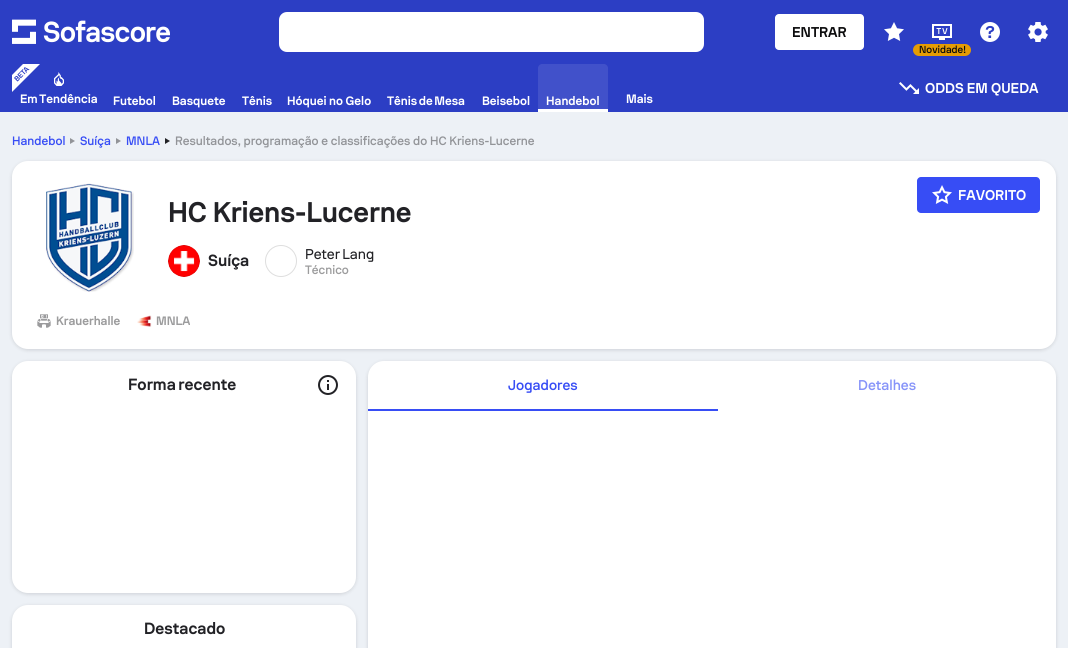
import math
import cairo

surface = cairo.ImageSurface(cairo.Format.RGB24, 1068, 648)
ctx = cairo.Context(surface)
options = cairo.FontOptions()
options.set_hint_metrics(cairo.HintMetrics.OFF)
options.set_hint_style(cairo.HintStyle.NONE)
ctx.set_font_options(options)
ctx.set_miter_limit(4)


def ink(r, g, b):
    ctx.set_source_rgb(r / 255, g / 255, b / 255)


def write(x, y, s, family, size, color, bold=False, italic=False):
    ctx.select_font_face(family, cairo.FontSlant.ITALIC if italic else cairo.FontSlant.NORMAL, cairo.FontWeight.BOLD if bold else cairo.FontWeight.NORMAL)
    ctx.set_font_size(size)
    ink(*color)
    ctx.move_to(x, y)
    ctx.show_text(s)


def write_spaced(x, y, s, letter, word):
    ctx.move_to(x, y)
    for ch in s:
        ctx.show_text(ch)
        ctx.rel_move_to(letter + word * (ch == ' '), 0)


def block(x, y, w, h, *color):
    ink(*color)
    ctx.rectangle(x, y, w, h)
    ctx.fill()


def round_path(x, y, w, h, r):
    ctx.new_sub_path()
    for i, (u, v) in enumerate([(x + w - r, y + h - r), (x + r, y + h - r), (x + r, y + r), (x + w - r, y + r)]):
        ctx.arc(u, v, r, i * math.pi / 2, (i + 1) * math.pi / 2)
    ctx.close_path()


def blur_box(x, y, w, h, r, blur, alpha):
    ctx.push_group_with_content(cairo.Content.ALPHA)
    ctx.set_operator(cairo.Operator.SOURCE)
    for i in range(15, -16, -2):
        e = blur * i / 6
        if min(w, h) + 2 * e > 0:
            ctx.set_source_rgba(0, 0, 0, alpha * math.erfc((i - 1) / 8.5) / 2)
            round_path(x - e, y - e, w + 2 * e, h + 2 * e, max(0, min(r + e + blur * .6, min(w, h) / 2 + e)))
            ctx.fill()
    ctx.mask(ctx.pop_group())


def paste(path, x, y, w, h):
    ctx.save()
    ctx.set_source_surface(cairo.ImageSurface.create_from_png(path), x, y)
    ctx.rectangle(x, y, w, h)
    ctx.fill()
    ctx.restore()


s1 = dict(family="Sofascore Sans", size=14, color=(12, 12, 13), bold=True)
s2 = dict(family="Sofascore Sans Medium", size=10, color=(12, 12, 13))
s3 = dict(family="Sofascore Sans", size=14, color=(255, 255, 255), bold=True)
s4 = dict(family="Sofascore Sans", size=12, color=(255, 255, 255), bold=True)
s5 = dict(family="Sofascore Sans Medium", size=12, color=(55, 77, 245))
s6 = dict(family="Sofascore Sans Medium", size=12, color=(146, 148, 152))
s7 = dict(family="Sofascore Sans", size=16, color=(34, 34, 38), bold=True)
s8 = dict(family="Sofascore Sans Medium", size=12, color=(156, 156, 157))
s9 = dict(family="Sofascore Sans", size=12, color=(156, 156, 157), bold=True)
s10 = dict(family="Sofascore Sans Medium", size=14, color=(55, 77, 245))
s11 = dict(family="Sofascore Sans Medium", size=14, color=(135, 148, 249))

ink(237, 241, 246)
ctx.paint()
block(0, 0, 1068, 112, 44, 62, 196)
paste("pic1.png", 12, 19, 158, 25)
ink(255, 255, 255)
round_path(279, 12, 425, 40, 8)
ctx.fill()
round_path(775, 14, 89, 36, 4)
ctx.fill()
write(792, 37, "ENTRAR", **s1)
paste("pic2.png", 884, 22, 20, 19)
paste("pic3.png", 980, 22, 20, 20)
paste("pic4.png", 1028, 22, 20, 20)
paste("pic5.png", 932, 24, 20, 16)
ink(229, 156, 3)
round_path(913, 44, 58, 12, 6)
ctx.fill()
write(919, 53, "Novidade!", **s2)
paste("pic6.png", 899, 82, 20, 12)
write(925, 93, "ODDS EM QUEDA", **s3)
paste("pic7.png", 12, 64, 28, 28)
paste("pic8.png", 54, 72, 10, 14)
ctx.save()
ctx.rectangle(20, 92, 77, 14)
ctx.clip()
ctx.set_font_size(12)
write_spaced(20, 103, "Em Tendência", 0, -1)
ctx.restore()
write(113, 105, "Futebol", **s4)
write(172, 105, "Basquete", **s4)
write(242, 105, "Tênis", **s4)
write(287, 105, "Hóquei no Gelo", **s4)
write_spaced(387, 105, "Tênis de Mesa", 0, -1)
write(482, 105, "Beisebol", **s4)
ink(65, 81, 202)
ctx.new_path()
ctx.move_to(542, 64)
ctx.line_to(604, 64)
ctx.curve_to(606, 64, 608, 66, 608, 68)
ctx.line_to(608, 112)
ctx.line_to(538, 112)
ctx.line_to(538, 68)
ctx.curve_to(538, 66, 540, 64, 542, 64)
ctx.close_path()
ctx.fill()
block(538, 109, 70, 3, 255, 255, 255)
write(546, 105, "Handebol", **s4)
write(626, 103, "Mais", **s4)
write(12, 145, "Handebol", **s5)
ink(146, 148, 152)
ctx.new_path()
ctx.move_to(70, 144)
ctx.line_to(70, 138)
ctx.line_to(75, 141)
ctx.close_path()
ctx.fill()
write(80, 145, "Suíça", **s5)
ink(146, 148, 152)
ctx.new_path()
ctx.move_to(116, 144)
ctx.line_to(116, 138)
ctx.line_to(121, 141)
ctx.close_path()
ctx.fill()
write(126, 145, "MNLA", **s5)
ink(34, 34, 38)
ctx.new_path()
ctx.move_to(165, 144)
ctx.line_to(165, 138)
ctx.line_to(170, 141)
ctx.close_path()
ctx.fill()
write(175, 145, "Resultados, programação e classificações do HC Kriens-Lucerne", **s6)
ink(34, 34, 38)
blur_box(12, 162, 1044, 188, 16, 2, 0.16)
ink(255, 255, 255)
round_path(12, 161, 1044, 188, 16)
ctx.fill()
ink(55, 77, 245)
round_path(917, 177, 123, 36, 4)
ctx.fill()
paste("pic9.png", 932, 185, 20, 19)
write(958, 200, "FAVORITO", **s3)
paste("pic10.png", 46, 183, 88, 109)
ctx.set_font_size(28)
ink(34, 34, 38)
write_spaced(168, 222, "HC Kriens-Lucerne", -0.1, 0)
paste("pic11.png", 168, 245, 32, 32)
write(208, 266, "Suíça", **s7)
ctx.new_path()
ctx.arc(281, 261, 15.5, 0, 2 * math.pi)
ink(222, 222, 222)
ctx.set_line_width(1)
ctx.stroke()
ctx.select_font_face("Sofascore Sans")
ctx.set_font_size(14)
ink(34, 34, 38)
write_spaced(305, 259, "Peter Lang", 0, -1)
write(305, 274, "Técnico", **s8)
paste("pic12.png", 37, 314, 14, 14)
write(56, 325, "Krauerhalle", **s9)
paste("pic13.png", 137, 315, 15, 12)
write(156, 325, "MNLA", **s9)
ink(34, 34, 38)
blur_box(12, 362, 344, 232, 16, 2, 0.16)
ink(255, 255, 255)
round_path(12, 361, 344, 232, 16)
ctx.fill()
ctx.set_font_size(16)
ink(34, 34, 38)
write_spaced(128, 390, "Forma recente", 0, -1)
paste("pic14.png", 318, 375, 20, 20)
ink(34, 34, 38)
blur_box(12, 606, 344, 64, 16, 2, 0.16)
ink(255, 255, 255)
round_path(12, 605, 344, 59, 16)
ctx.fill()
write(144, 634, "Destacado", **s7)
ink(34, 34, 38)
blur_box(368, 362, 688, 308, 16, 2, 0.16)
ink(255, 255, 255)
round_path(368, 361, 688, 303, 16)
ctx.fill()
block(368, 409, 350, 2, 55, 77, 245)
write(508, 390, "Jogadores", **s10)
write(858, 390, "Detalhes", **s11)
surface.write_to_png("screenshot.png")
